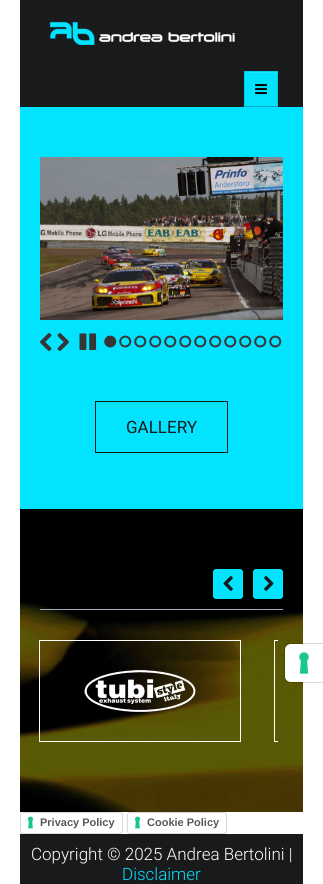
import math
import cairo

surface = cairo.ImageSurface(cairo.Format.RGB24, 323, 884)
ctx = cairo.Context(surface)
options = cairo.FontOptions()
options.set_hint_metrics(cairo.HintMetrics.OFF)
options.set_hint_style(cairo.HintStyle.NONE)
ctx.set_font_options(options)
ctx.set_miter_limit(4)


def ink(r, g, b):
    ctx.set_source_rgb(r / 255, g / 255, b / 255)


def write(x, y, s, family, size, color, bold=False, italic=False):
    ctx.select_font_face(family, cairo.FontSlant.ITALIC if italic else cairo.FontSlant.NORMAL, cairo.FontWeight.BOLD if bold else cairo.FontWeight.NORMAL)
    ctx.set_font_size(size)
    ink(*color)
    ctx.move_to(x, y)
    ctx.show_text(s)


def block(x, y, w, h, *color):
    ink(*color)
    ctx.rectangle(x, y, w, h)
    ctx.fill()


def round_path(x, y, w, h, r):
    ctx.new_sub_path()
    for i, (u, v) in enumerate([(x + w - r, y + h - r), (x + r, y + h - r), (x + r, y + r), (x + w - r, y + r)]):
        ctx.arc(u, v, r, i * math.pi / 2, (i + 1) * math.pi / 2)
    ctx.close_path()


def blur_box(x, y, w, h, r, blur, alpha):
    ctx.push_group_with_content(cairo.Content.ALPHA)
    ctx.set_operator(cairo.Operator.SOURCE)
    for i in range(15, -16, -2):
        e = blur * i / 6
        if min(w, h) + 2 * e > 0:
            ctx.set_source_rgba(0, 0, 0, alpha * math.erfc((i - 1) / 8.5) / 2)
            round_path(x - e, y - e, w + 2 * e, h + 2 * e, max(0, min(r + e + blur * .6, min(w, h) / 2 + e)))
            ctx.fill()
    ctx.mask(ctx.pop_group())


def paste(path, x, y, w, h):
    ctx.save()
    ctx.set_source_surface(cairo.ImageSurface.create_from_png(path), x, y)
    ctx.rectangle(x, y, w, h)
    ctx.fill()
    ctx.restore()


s1 = dict(family="Roboto", size=17, color=(24, 26, 28))
s2 = dict(family="Liberation Sans", size=11, color=(89, 89, 89), bold=True)
s3 = dict(family="Roboto Light", size=17, color=(255, 255, 255))
s4 = dict(family="Roboto Light", size=17, color=(2, 227, 255))

ink(255, 255, 255)
ctx.paint()
block(20, 0, 283, 107, 24, 26, 28)
paste("pic1.png", 49, 21, 186, 24)
block(244, 71, 34, 36, 2, 227, 255)
block(245, 72, 32, 1, 27, 230, 255)
ink(2, 204, 230)
ctx.new_path()
ctx.move_to(244, 71)
ctx.line_to(278, 71)
ctx.line_to(277, 72)
ctx.line_to(245, 72)
ctx.close_path()
ctx.fill()
ctx.set_source_rgba(0, 0, 0, 0.1)
ctx.new_path()
ctx.move_to(278, 71)
ctx.line_to(278, 107)
ctx.line_to(277, 106)
ctx.line_to(277, 72)
ctx.close_path()
ctx.fill()
ctx.set_source_rgba(0, 0, 0, 0.25)
ctx.new_path()
ctx.move_to(278, 107)
ctx.line_to(244, 107)
ctx.line_to(245, 106)
ctx.line_to(277, 106)
ctx.close_path()
ctx.fill()
ctx.set_source_rgba(0, 0, 0, 0.1)
ctx.new_path()
ctx.move_to(244, 107)
ctx.line_to(244, 71)
ctx.line_to(245, 72)
ctx.line_to(245, 106)
ctx.close_path()
ctx.fill()
paste("pic2.png", 255, 84, 12, 11)
block(20, 107, 283, 402, 2, 227, 255)
paste("pic3.png", 40, 157, 243, 163)
paste("pic4.png", 40, 333, 12, 18)
paste("pic5.png", 57, 333, 12, 18)
paste("pic6.png", 79, 333, 18, 17)
paste("pic7.png", 104, 335, 13, 13)
paste("pic8.png", 119, 335, 13, 13)
paste("pic8.png", 134, 335, 13, 13)
paste("pic8.png", 149, 335, 13, 13)
paste("pic8.png", 164, 335, 13, 13)
paste("pic8.png", 179, 335, 13, 13)
paste("pic8.png", 194, 335, 13, 13)
paste("pic8.png", 209, 335, 13, 13)
paste("pic8.png", 224, 335, 13, 13)
paste("pic8.png", 239, 335, 13, 13)
paste("pic8.png", 254, 335, 13, 13)
paste("pic8.png", 269, 335, 13, 13)
ctx.rectangle(95.5, 401.5, 132, 51)
ink(24, 26, 28)
ctx.set_line_width(1)
ctx.stroke()
write(126, 433, "GALLERY", **s1)
paste("pic9.png", 20, 509, 283, 303)
block(40, 609, 243, 1, 161, 170, 183)
ink(2, 227, 255)
round_path(213, 569, 30, 30, 3)
ctx.fill()
paste("pic10.png", 223, 576, 10, 15)
round_path(253, 569, 30, 30, 3)
ctx.fill()
paste("pic11.png", 264, 576, 10, 15)
ctx.rectangle(39.5, 640.5, 201, 101)
ink(255, 255, 255)
ctx.stroke()
paste("pic12.png", 84, 670, 112, 42)
ctx.save()
ctx.rectangle(35, 640, 243, 102)
ctx.clip()
ctx.rectangle(274.5, 640.5, 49, 101)
ctx.stroke()
ctx.restore()
ctx.new_path()
ctx.move_to(291, 643.5)
ctx.line_to(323.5, 643.5)
ctx.line_to(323.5, 682.5)
ctx.line_to(291, 682.5)
ctx.curve_to(287.5, 682.5, 284.5, 679.5, 284.5, 676)
ctx.line_to(284.5, 650)
ctx.curve_to(284.5, 646.5, 287.5, 643.5, 291, 643.5)
ctx.close_path()
ctx.set_source_rgba(0, 0, 0, 0.15)
ctx.stroke()
ink(255, 255, 255)
ctx.new_path()
ctx.move_to(291, 644)
ctx.line_to(323, 644)
ctx.line_to(323, 682)
ctx.line_to(291, 682)
ctx.curve_to(287.5, 682, 285, 679.5, 285, 676)
ctx.line_to(285, 650)
ctx.curve_to(285, 646.5, 287.5, 644, 291, 644)
ctx.close_path()
ctx.fill()
paste("pic13.png", 299, 652, 10, 22)
block(20, 834, 283, 50, 24, 26, 28)
ink(0, 0, 0)
blur_box(21, 814, 101, 20, 2, 0.5, 0.15)
ink(255, 255, 255)
round_path(20, 812, 103, 22, 3)
ctx.fill()
paste("pic14.png", 27, 816, 7, 13)
round_path(20.5, 812.5, 102, 21, 2.5)
ctx.set_source_rgba(0, 0, 0, 0.15)
ctx.stroke()
write(40, 826, "Privacy Policy", **s2)
ink(0, 0, 0)
blur_box(128, 814, 98, 20, 2, 0.5, 0.15)
ink(255, 255, 255)
round_path(127, 812, 100, 22, 3)
ctx.fill()
paste("pic14.png", 134, 816, 7, 13)
round_path(127.5, 812.5, 99, 21, 2.5)
ctx.set_source_rgba(0, 0, 0, 0.15)
ctx.stroke()
write(147, 826, "Cookie Policy", **s2)
write(31, 860, "Copyright © 2025 Andrea Bertolini |", **s3)
write(122, 880, "Disclaimer", **s4)
surface.write_to_png("screenshot.png")
